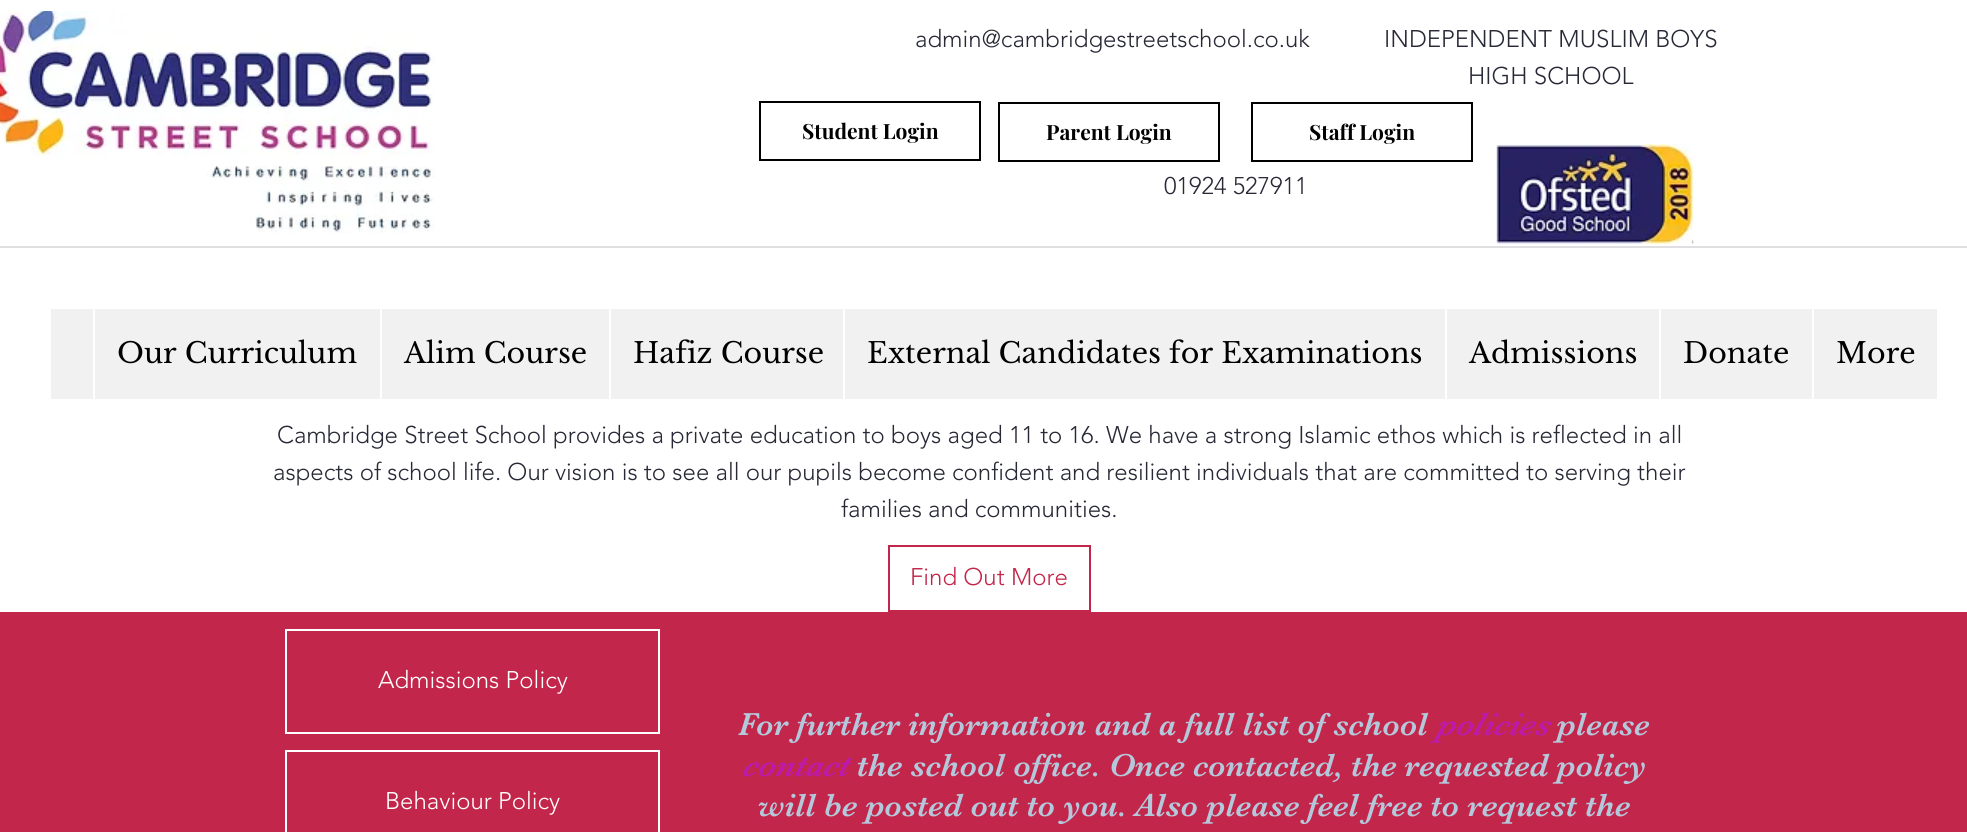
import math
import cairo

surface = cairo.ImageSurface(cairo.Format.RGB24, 1967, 832)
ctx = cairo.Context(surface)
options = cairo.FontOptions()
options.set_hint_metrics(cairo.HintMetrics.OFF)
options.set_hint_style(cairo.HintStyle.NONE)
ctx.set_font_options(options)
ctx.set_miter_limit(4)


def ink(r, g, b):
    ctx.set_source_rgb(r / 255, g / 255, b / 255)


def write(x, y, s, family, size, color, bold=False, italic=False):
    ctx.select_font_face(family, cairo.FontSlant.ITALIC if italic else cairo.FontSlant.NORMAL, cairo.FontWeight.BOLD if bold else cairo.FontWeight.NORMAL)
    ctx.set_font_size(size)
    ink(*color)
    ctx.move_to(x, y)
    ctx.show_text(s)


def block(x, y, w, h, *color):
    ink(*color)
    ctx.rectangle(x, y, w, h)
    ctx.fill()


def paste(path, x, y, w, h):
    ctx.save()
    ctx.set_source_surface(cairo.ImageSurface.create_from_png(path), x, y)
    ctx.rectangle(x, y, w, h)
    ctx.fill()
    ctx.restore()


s1 = dict(family="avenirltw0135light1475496 Light", size=24, color=(40, 41, 54))
s2 = dict(family="Libre Baskerville", size=28.5, color=(0, 0, 0))
s3 = dict(family="Playfair Display", size=21, color=(0, 0, 0), bold=True)
s4 = dict(family="avenirltw0135light1475496 Light", size=24, color=(194, 39, 75))
s5 = dict(family="avenirltw0135light1475496 Light", size=24, color=(255, 255, 255))
s6 = dict(family="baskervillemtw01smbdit", size=33, color=(180, 200, 220))
s7 = dict(family="baskervillemtw01smbdit", size=33, color=(189, 26, 172), italic=True)

ink(194, 39, 75)
ctx.paint()
block(0, 0, 1967, 612, 255, 255, 255)
paste("pic1.png", 0, 11, 435, 223)
write(915, 47, "admin@cambridgestreetschool.co.uk", **s1)
write(1384, 47, "INDEPENDENT MUSLIM BOYS", **s1)
write(1468, 84, "HIGH SCHOOL", **s1)
write(1164, 194, "01924 527911", **s1)
block(51, 309, 1886, 90, 241, 241, 241)
block(93, 309, 2, 90, 255, 255, 255)
write(117, 363, "Our Curriculum", **s2)
block(380, 309, 2, 90, 255, 255, 255)
write(404, 363, "Alim Course", **s2)
block(609, 309, 2, 90, 255, 255, 255)
write(633, 363, "Hafiz Course", **s2)
block(843, 309, 2, 90, 255, 255, 255)
write(867, 363, "External Candidates for Examinations", **s2)
block(1445, 309, 2, 90, 255, 255, 255)
write(1469, 363, "Admissions", **s2)
block(1659, 309, 2, 90, 255, 255, 255)
write(1683, 363, "Donate", **s2)
block(1812, 309, 2, 90, 255, 255, 255)
write(1836, 363, "More", **s2)
ctx.rectangle(760, 102, 220, 58)
ctx.stroke()
write(802, 139, "Student Login", **s3)
ctx.rectangle(999, 103, 220, 58)
ctx.stroke()
write(1046, 140, "Parent Login", **s3)
ctx.rectangle(1252, 103, 220, 58)
ctx.stroke()
write(1309, 140, "Staff Login", **s3)
paste("pic2.png", 1496, 144, 198, 101)
block(0, 246, 1967, 2, 223, 223, 225)
write(277, 443, "Cambridge Street School provides a private education to boys aged 11 to 16. We have a strong Islamic ethos which is reflected in all", **s1)
write(273, 480, "aspects of school life. Our vision is to see all our pupils become confident and resilient individuals that are committed to serving their", **s1)
write(841, 517, "families and communities.", **s1)
ctx.rectangle(889, 546, 201, 65)
ink(194, 39, 75)
ctx.stroke()
write(910, 585, "Find Out More", **s4)
ctx.rectangle(286, 630, 373, 103)
ink(255, 255, 255)
ctx.stroke()
write(378, 688, "Admissions Policy", **s5)
ctx.rectangle(286, 751, 373, 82)
ctx.stroke()
write(385, 809, "Behaviour Policy", **s5)
write(738, 735, "For further information and a full list of school", **s6)
write(1436, 735, "policies", **s7)
write(1557, 735, "please", **s6)
write(742, 776, "contact", **s7)
write(857, 776, "the school office. Once contacted, the requested policy", **s6)
write(758, 816, "will be posted out to you. Also please feel free to request the", **s6)
surface.write_to_png("screenshot.png")
